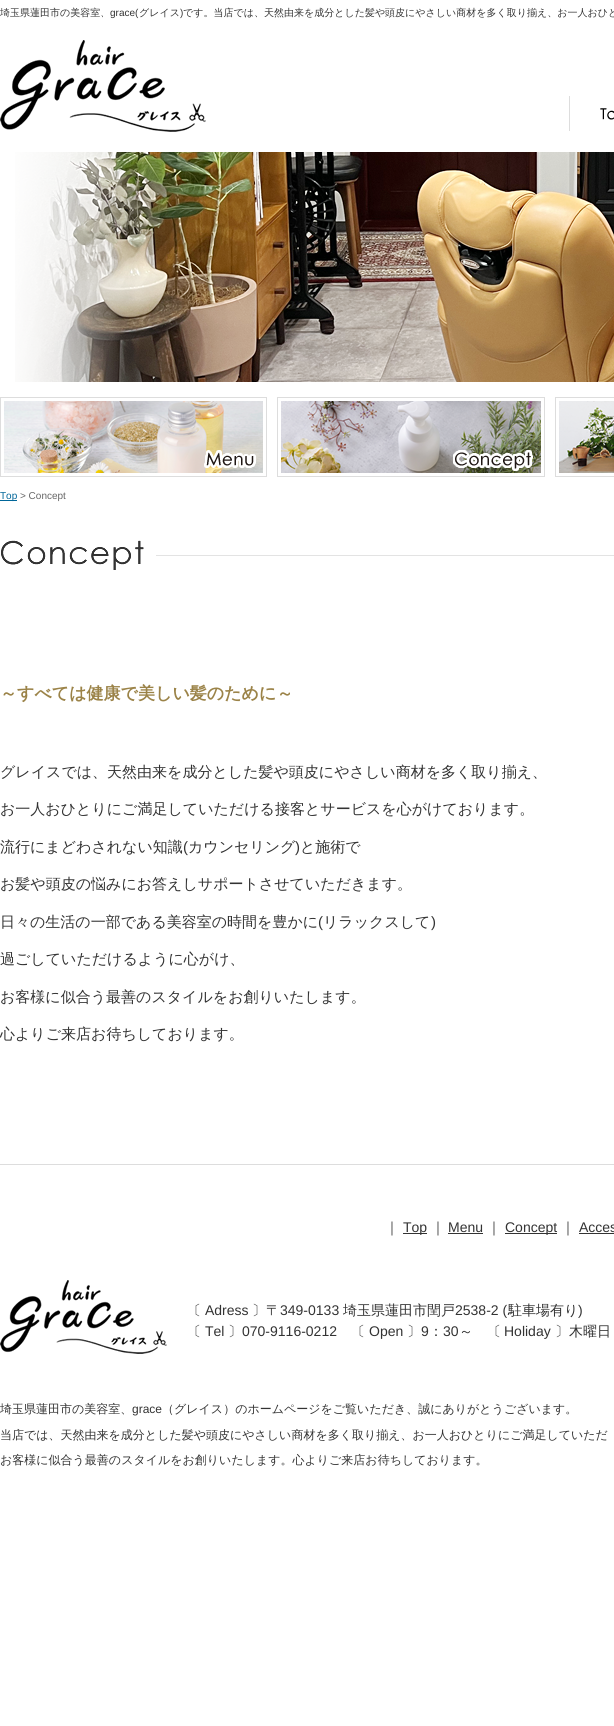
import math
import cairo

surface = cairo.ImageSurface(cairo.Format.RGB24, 614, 1726)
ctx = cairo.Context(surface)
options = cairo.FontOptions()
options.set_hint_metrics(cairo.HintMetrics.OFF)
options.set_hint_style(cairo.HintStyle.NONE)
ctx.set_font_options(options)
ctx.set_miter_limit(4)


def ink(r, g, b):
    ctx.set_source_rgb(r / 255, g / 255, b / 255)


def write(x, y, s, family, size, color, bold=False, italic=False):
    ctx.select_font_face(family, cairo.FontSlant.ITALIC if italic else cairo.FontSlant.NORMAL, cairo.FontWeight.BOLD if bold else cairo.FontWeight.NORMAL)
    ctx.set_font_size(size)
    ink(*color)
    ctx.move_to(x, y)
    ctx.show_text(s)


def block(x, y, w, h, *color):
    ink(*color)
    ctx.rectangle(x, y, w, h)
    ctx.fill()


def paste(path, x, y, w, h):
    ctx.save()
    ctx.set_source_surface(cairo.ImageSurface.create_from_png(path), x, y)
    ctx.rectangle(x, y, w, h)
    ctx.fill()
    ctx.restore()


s1 = dict(family="WenQuanYi Zen Hei Medium", size=10, color=(51, 51, 51))
s2 = dict(family="Liberation Sans", size=10, color=(51, 51, 51))
s3 = dict(family="Liberation Sans", size=10, color=(0, 102, 153))
s4 = dict(family="Liberation Sans", size=10, color=(102, 102, 102))
s5 = dict(family="WenQuanYi Zen Hei", size=17, color=(155, 131, 72), bold=True)
s6 = dict(family="WenQuanYi Zen Hei Medium", size=15, color=(51, 51, 51))
s7 = dict(family="Liberation Sans", size=15, color=(51, 51, 51))
s8 = dict(family="WenQuanYi Zen Hei Medium", size=14, color=(51, 51, 51))
s9 = dict(family="Liberation Sans", size=14, color=(51, 51, 51))
s10 = dict(family="WenQuanYi Zen Hei Medium", size=12, color=(51, 51, 51))
s11 = dict(family="Liberation Sans", size=12, color=(51, 51, 51))

ink(255, 255, 255)
ctx.paint()
write(0, 16, "埼玉県蓮田市の美容室、", **s1)
write(110, 16, "grace(", **s2)
write(139, 16, "グレイス", **s1)
write(180, 16, ")", **s2)
write(183, 16, "です。当店では、天然由来を成分とした髪や頭皮にやさしい商材を多く取り揃え、お一人おひと", **s1)
paste("pic1.png", 0, 40, 206, 92)
paste("pic2.png", 569, 96, 45, 35)
paste("pic3.png", 15, 152, 599, 230)
paste("pic4.png", 0, 397, 267, 80)
paste("pic5.png", 277, 397, 268, 80)
paste("pic6.png", 555, 397, 59, 80)
block(0, 500, 17, 1, 0, 102, 153)
write(0, 499, "Top", **s3)
write(20, 499, "> Concept", **s4)
paste("pic7.png", 1, 540, 613, 30)
write(0, 699, "～すべては健康で美しい髪のために～", **s5)
write(0, 777, "グレイスでは、天然由来を成分とした髪や頭皮にやさしい商材を多く取り揃え、", **s6)
write(0, 814, "お一人おひとりにご満足していただける接客とサービスを心がけております。", **s6)
write(0, 852, "流行にまどわされない知識", **s6)
write(183, 852, "(", **s7)
write(188, 852, "カウンセリング", **s6)
write(295, 852, ")", **s7)
write(300, 852, "と施術で", **s6)
write(0, 889, "お髪や頭皮の悩みにお答えしサポートさせていただきます。", **s6)
write(0, 927, "日々の生活の一部である美容室の時間を豊かに", **s6)
write(318, 927, "(", **s7)
write(323, 927, "リラックスして", **s6)
write(431, 927, ")", **s7)
write(0, 964, "過ごしていただけるように心がけ、", **s6)
write(0, 1002, "お客様に似合う最善のスタイルをお創りいたします。", **s6)
write(0, 1039, "心よりご来店お待ちしております。", **s6)
block(0, 1164, 614, 1, 221, 221, 221)
write(385, 1232, "｜", **s8)
block(403, 1233, 24, 1, 51, 51, 51)
write(403, 1232, "Top", **s9)
write(431, 1232, "｜", **s8)
write(448, 1232, "Menu", **s9)
block(448, 1233, 35, 1, 51, 51, 51)
write(487, 1232, "｜", **s8)
block(505, 1233, 52, 1, 51, 51, 51)
write(505, 1232, "Concept", **s9)
write(561, 1232, "｜", **s8)
write(579, 1232, "Acces", **s9)
block(579, 1233, 35, 1, 51, 51, 51)
paste("pic8.png", 0, 1280, 167, 74)
write(187, 1315, "〔", **s8)
write(205, 1315, "Adress", **s9)
write(252, 1315, "〕〒", **s8)
write(280, 1315, "349-0133", **s9)
write(343, 1315, "埼玉県蓮田市閏戸", **s8)
write(455, 1315, "2538-2 (", **s9)
write(508, 1315, "駐車場有り", **s8)
write(578, 1315, ")", **s9)
write(187, 1336, "〔", **s8)
write(205, 1336, "Tel", **s9)
write(228, 1336, "〕", **s8)
write(242, 1336, "070-9116-0212", **s9)
write(351, 1336, "〔", **s8)
write(369, 1336, "Open", **s9)
write(407, 1336, "〕", **s8)
write(421, 1336, "9", **s9)
write(429, 1336, "：", **s8)
write(443, 1336, "30", **s9)
write(459, 1336, "～　〔", **s8)
write(504, 1336, "Holiday", **s9)
write(555, 1336, "〕木曜日", **s8)
write(0, 1413, "埼玉県蓮田市の美容室、", **s10)
write(132, 1413, "grace", **s11)
write(162, 1413, "（グレイス）のホームページをご覧いただき、誠にありがとうございます。", **s10)
write(0, 1439, "当店では、天然由来を成分とした髪や頭皮にやさしい商材を多く取り揃え、お一人おひとりにご満足していただ", **s10)
write(0, 1464, "お客様に似合う最善のスタイルをお創りいたします。心よりご来店お待ちしております。", **s10)
surface.write_to_png("screenshot.png")
